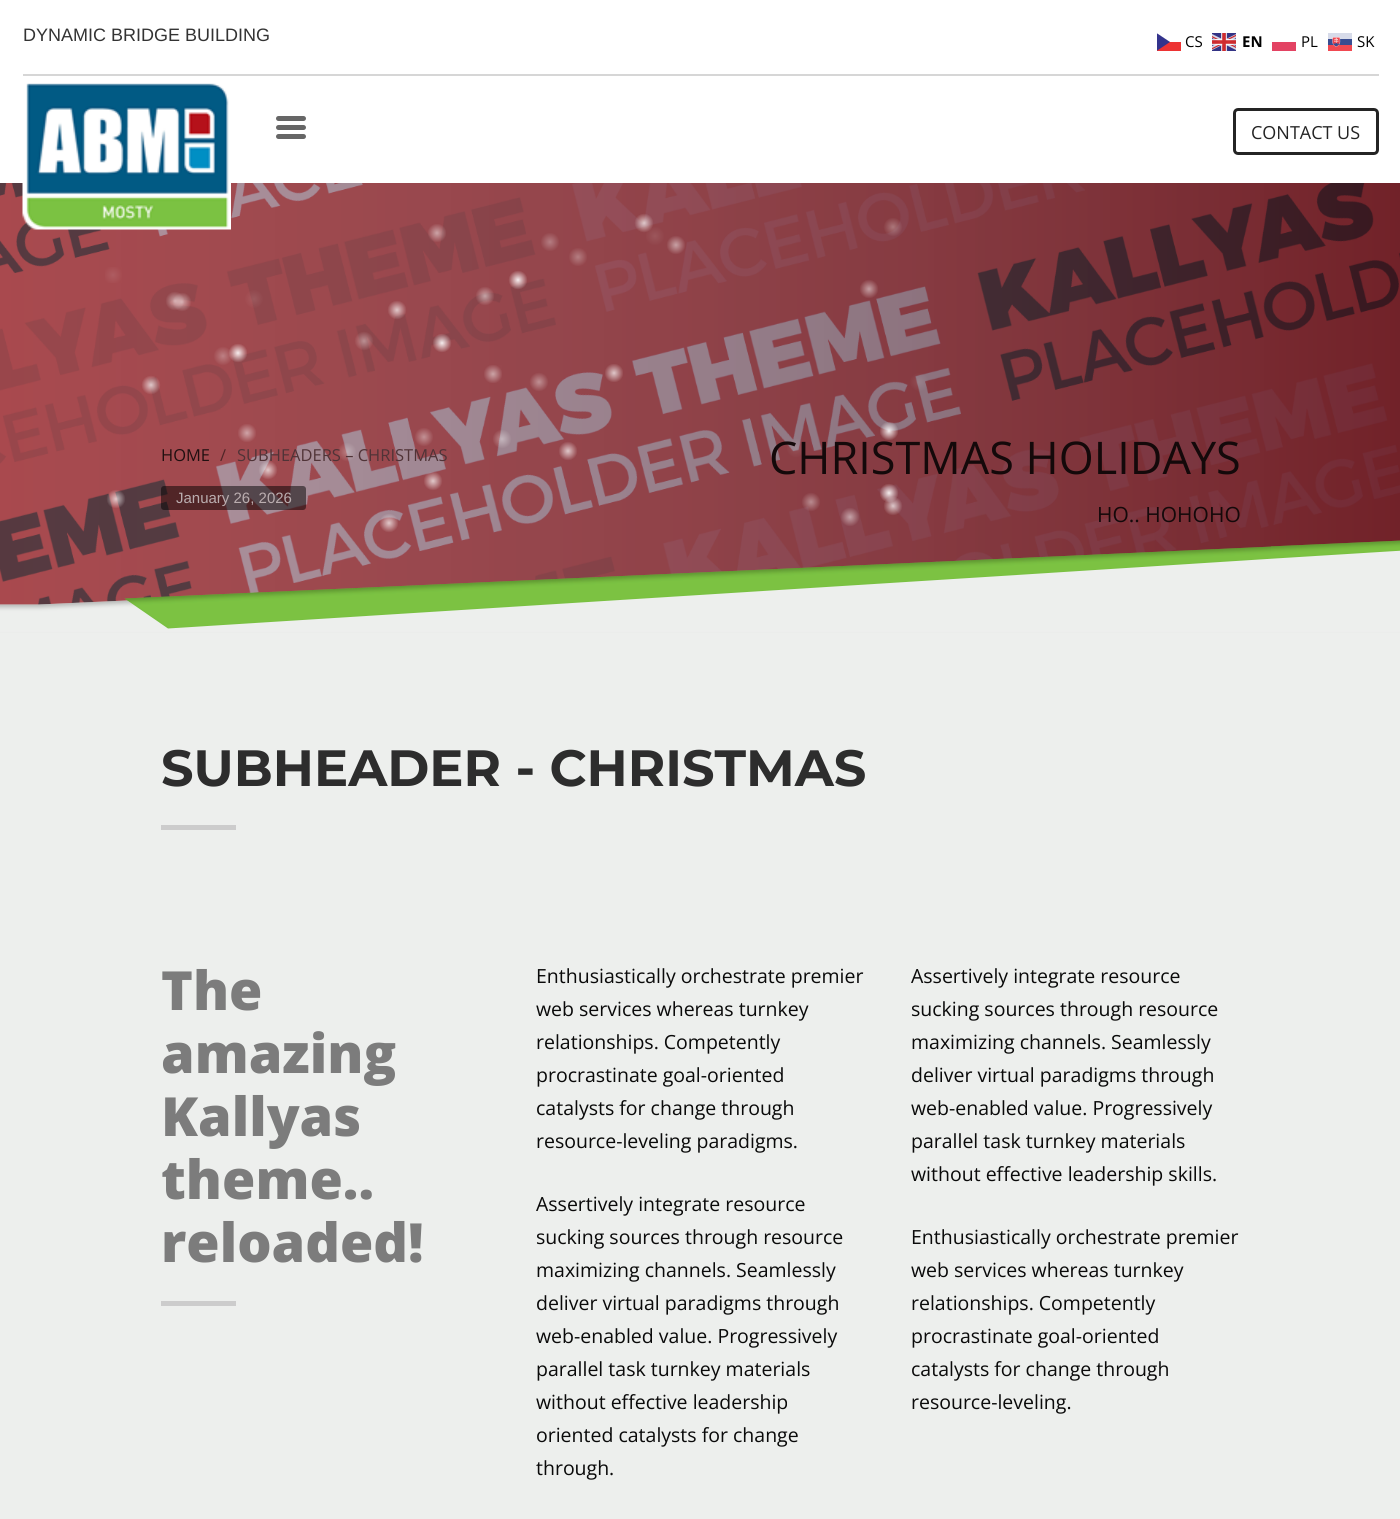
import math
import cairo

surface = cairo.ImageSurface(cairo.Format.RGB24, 1400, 1519)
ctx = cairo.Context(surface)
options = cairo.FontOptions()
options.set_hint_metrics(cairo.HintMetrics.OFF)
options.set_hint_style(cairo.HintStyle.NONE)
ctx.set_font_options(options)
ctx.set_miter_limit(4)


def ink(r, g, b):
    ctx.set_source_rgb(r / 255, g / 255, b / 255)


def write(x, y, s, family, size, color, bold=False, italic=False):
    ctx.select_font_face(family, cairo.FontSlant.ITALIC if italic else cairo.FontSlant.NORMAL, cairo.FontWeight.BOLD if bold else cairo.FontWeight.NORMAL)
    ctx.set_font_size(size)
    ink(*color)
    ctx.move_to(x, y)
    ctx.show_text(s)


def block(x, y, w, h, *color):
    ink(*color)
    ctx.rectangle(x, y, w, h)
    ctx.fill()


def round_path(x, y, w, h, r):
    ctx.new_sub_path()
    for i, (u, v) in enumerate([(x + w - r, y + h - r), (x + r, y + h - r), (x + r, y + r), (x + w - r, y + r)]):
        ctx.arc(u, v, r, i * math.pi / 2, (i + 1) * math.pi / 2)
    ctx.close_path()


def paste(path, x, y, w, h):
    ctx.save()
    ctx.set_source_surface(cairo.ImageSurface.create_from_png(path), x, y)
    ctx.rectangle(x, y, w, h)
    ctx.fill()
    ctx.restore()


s1 = dict(family="Liberation Sans", size=18, color=(51, 51, 51))
s2 = dict(family="Open Sans", size=18, color=(36, 36, 36))
s3 = dict(family="Open Sans", size=16.5, color=(32, 15, 16))
s4 = dict(family="Open Sans", size=16.5, color=(80, 37, 39))
s5 = dict(family="Open Sans", size=16.5, color=(80, 51, 55))
s6 = dict(family="Liberation Sans", size=15, color=(186, 173, 175))
s7 = dict(family="Open Sans", size=45, color=(20, 9, 10))
s8 = dict(family="Open Sans", size=21, color=(20, 9, 10))
s9 = dict(family="Montserrat Thin", size=51, color=(45, 45, 45))
s10 = dict(family="Open Sans ExtraBold", size=54, color=(124, 124, 124))
s11 = dict(family="Open Sans", size=19.5, color=(10, 10, 10))
s12 = dict(family="Open Sans", size=15, color=(0, 0, 0))
s13 = dict(family="Open Sans", size=15, color=(0, 0, 0), bold=True)

ink(237, 239, 237)
ctx.paint()
block(0, 0, 1400, 183, 255, 255, 255)
write(23, 41, "DYNAMIC BRIDGE BUILDING", **s1)
block(23, 74, 1356, 2, 214, 214, 214)
paste("pic2.png", 0, 183, 1400, 422)
paste("pic1.png", 22, 83, 209, 147)
ink(102, 102, 102)
round_path(276, 116, 30, 5, 2.5)
ctx.fill()
round_path(276, 125, 30, 5, 2.5)
ctx.fill()
round_path(276, 134, 30, 5, 2.5)
ctx.fill()
round_path(1234.5, 109.5, 143, 44, 3.5)
ink(36, 36, 36)
ctx.set_line_width(3)
ctx.stroke()
write(1251, 139, "CONTACT US", **s2)
gradient = cairo.RadialGradient(550, 242, 0, 550, 242, 16)
gradient.add_color_stop_rgba(0, 0.706, 0.49, 0.51, 1)
gradient.add_color_stop_rgba(0.6, 0.584, 0.275, 0.298, 1)
ctx.set_source(gradient)
ctx.rectangle(541, 233, 18, 18)
ctx.fill()
gradient = cairo.RadialGradient(578, 257, 0, 578, 257, 16)
gradient.add_color_stop_rgba(0, 0.706, 0.49, 0.506, 1)
gradient.add_color_stop_rgba(0.6, 0.58, 0.271, 0.294, 1)
ctx.set_source(gradient)
ctx.rectangle(569, 248, 18, 18)
ctx.fill()
gradient = cairo.RadialGradient(113, 275, 0, 113, 275, 16)
gradient.add_color_stop_rgba(0, 0.682, 0.361, 0.38, 1)
gradient.add_color_stop_rgba(0.6, 0.647, 0.29, 0.31, 1)
ctx.set_source(gradient)
ctx.rectangle(105, 267, 17, 16)
ctx.fill()
gradient = cairo.RadialGradient(493, 374, 0, 493, 374, 16)
gradient.add_color_stop_rgba(0, 0.796, 0.639, 0.651, 1)
gradient.add_color_stop_rgba(0.6, 0.592, 0.278, 0.302, 1)
ctx.set_source(gradient)
ctx.rectangle(484, 365, 18, 18)
ctx.fill()
gradient = cairo.RadialGradient(614, 373, 0, 614, 373, 16)
gradient.add_color_stop_rgba(0, 0.871, 0.78, 0.788, 1)
gradient.add_color_stop_rgba(0.6, 0.573, 0.267, 0.29, 1)
ctx.set_source(gradient)
ctx.rectangle(605, 364, 18, 18)
ctx.fill()
gradient = cairo.RadialGradient(247, 433, 0, 247, 433, 16)
gradient.add_color_stop_rgba(0, 0.812, 0.643, 0.655, 1)
gradient.add_color_stop_rgba(0.6, 0.627, 0.29, 0.31, 1)
ctx.set_source(gradient)
ctx.rectangle(238, 424, 18, 18)
ctx.fill()
gradient = cairo.RadialGradient(889, 431, 0, 889, 431, 16)
gradient.add_color_stop_rgba(0, 1, 1, 1, 0.9)
gradient.add_color_stop_rgba(0.6, 1, 1, 1, 0)
ctx.set_source(gradient)
ctx.rectangle(880, 422, 18, 18)
ctx.fill()
write(161, 461, "HOME", **s3)
write(220, 461, "/", **s4)
write(237, 461, "SUBHEADERS – CHRISTMAS", **s5)
ctx.set_source_rgba(0, 0, 0, 0.5)
round_path(161, 486, 145, 24, 3)
ctx.fill()
write(176, 503, "January 26, 2026", **s6)
write(769, 474, "CHRISTMAS HOLIDAYS", **s7)
write(1097, 522, "HO.. HOHOHO", **s8)
paste("pic3.png", 0, 540, 1400, 93)
write(161, 786, "SUBHEADER - CHRISTMAS", **s9)
block(161, 825, 75, 5, 204, 204, 204)
write(161, 1010, "The", **s10)
write(161, 1073, "amazing", **s10)
write(161, 1136, "Kallyas", **s10)
write(161, 1199, "theme..", **s10)
write(161, 1262, "reloaded!", **s10)
block(161, 1301, 75, 5, 204, 204, 204)
write(536, 983, "Enthusiastically orchestrate premier", **s11)
write(536, 1016, "web services whereas turnkey", **s11)
write(536, 1049, "relationships. Competently", **s11)
write(536, 1082, "procrastinate goal-oriented", **s11)
write(536, 1115, "catalysts for change through", **s11)
write(536, 1148, "resource-leveling paradigms.", **s11)
write(536, 1211, "Assertively integrate resource", **s11)
write(536, 1244, "sucking sources through resource", **s11)
write(536, 1277, "maximizing channels. Seamlessly", **s11)
write(536, 1310, "deliver virtual paradigms through", **s11)
write(536, 1343, "web-enabled value. Progressively", **s11)
write(536, 1376, "parallel task turnkey materials", **s11)
write(536, 1409, "without effective leadership", **s11)
write(536, 1442, "oriented catalysts for change", **s11)
write(536, 1475, "through.", **s11)
write(911, 983, "Assertively integrate resource", **s11)
write(911, 1016, "sucking sources through resource", **s11)
write(911, 1049, "maximizing channels. Seamlessly", **s11)
write(911, 1082, "deliver virtual paradigms through", **s11)
write(911, 1115, "web-enabled value. Progressively", **s11)
write(911, 1148, "parallel task turnkey materials", **s11)
write(911, 1181, "without effective leadership skills.", **s11)
write(911, 1244, "Enthusiastically orchestrate premier", **s11)
write(911, 1277, "web services whereas turnkey", **s11)
write(911, 1310, "relationships. Competently", **s11)
write(911, 1343, "procrastinate goal-oriented", **s11)
write(911, 1376, "catalysts for change through", **s11)
write(911, 1409, "resource-leveling.", **s11)
write(1185, 47, "CS", **s12)
block(1157, 42, 24, 9, 237, 51, 51)
ctx.save()
ctx.rectangle(1157, 33, 24, 18)
ctx.clip()
ink(51, 51, 140)
ctx.set_fill_rule(cairo.FillRule.EVEN_ODD)
ctx.new_path()
ctx.move_to(1156.5, 33)
ctx.line_to(1170, 42)
ctx.line_to(1156.5, 51)
ctx.close_path()
ctx.fill()
ctx.restore()
paste("pic4.png", 1212, 33, 24, 18)
write(1242, 47, "EN", **s13)
write(1301, 47, "PL", **s12)
block(1272, 42, 24, 9, 227, 67, 99)
paste("pic5.png", 1328, 33, 24, 18)
write(1357, 47, "SK", **s12)
surface.write_to_png("screenshot.png")
